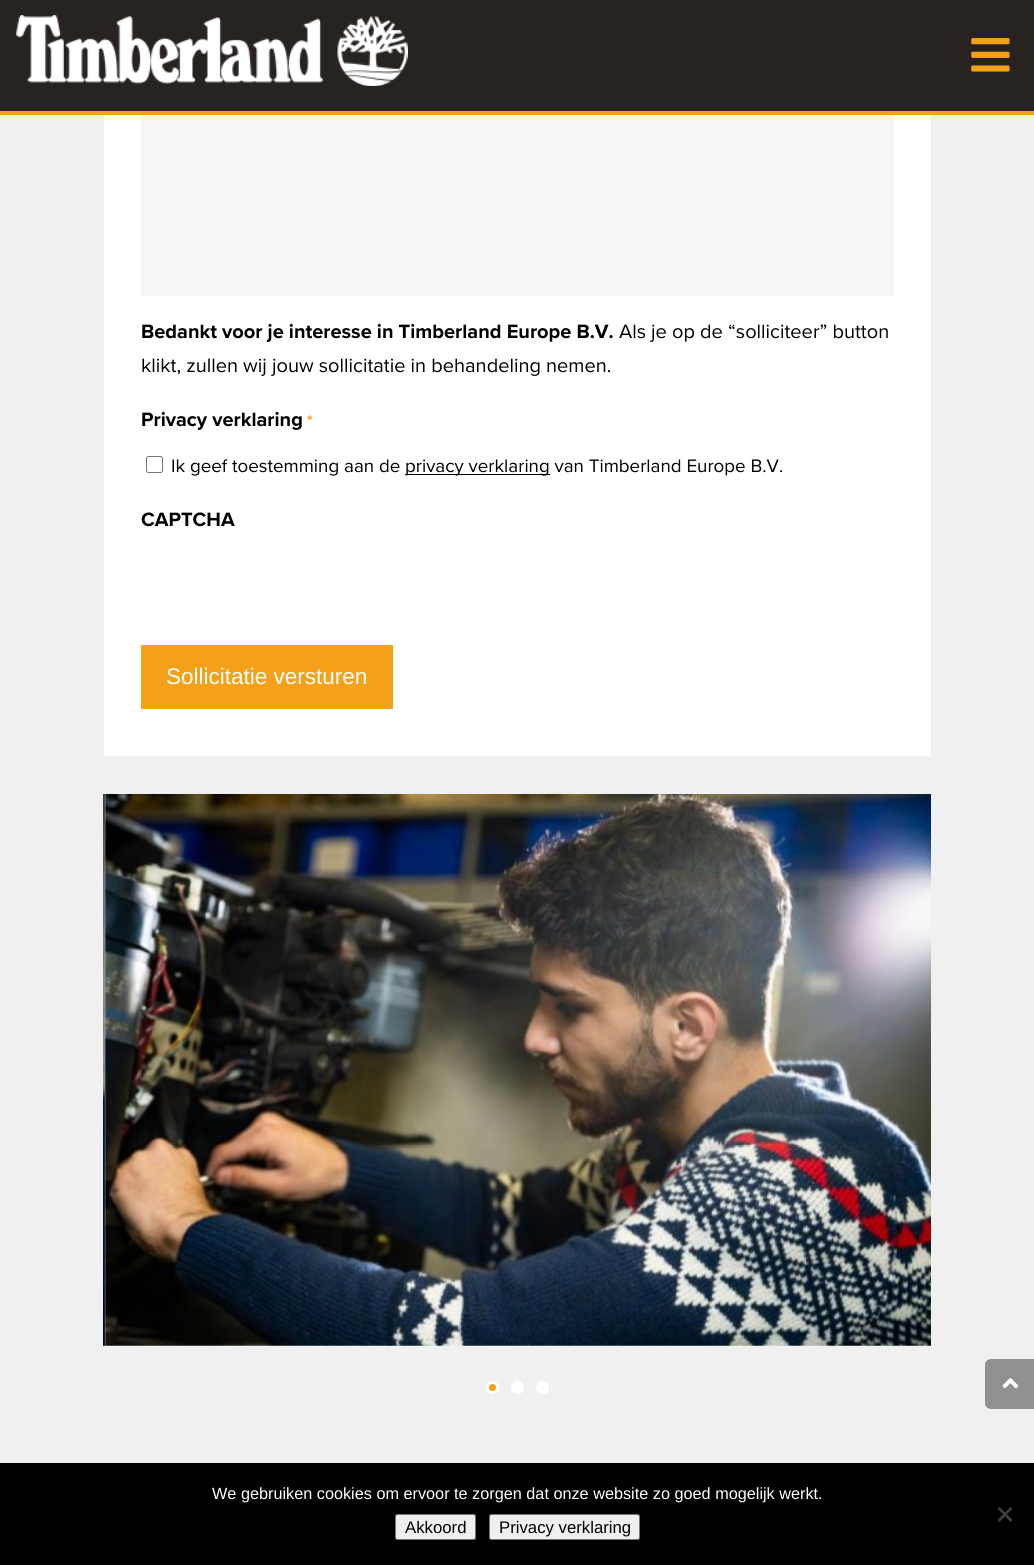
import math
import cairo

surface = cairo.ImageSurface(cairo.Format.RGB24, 1034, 1565)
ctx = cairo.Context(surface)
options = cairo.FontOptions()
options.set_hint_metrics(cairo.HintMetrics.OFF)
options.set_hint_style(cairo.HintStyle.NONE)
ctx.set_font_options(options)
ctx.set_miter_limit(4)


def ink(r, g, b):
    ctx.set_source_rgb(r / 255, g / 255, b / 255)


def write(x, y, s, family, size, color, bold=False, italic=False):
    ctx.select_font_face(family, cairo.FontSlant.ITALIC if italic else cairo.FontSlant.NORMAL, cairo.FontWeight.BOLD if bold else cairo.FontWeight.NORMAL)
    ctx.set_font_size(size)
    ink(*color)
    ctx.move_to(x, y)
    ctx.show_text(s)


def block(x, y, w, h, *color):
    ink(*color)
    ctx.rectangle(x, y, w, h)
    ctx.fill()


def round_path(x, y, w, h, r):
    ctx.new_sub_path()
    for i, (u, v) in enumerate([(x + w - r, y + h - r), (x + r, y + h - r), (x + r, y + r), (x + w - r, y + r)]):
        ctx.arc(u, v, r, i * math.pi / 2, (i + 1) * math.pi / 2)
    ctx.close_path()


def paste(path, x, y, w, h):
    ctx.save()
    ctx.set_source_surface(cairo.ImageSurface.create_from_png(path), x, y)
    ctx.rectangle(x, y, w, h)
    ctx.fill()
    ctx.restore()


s1 = dict(family="Proxima Nova", size=20, color=(0, 0, 0), bold=True)
s2 = dict(family="Proxima Nova", size=20, color=(0, 0, 0))
s3 = dict(family="Proxima Nova", size=16, color=(245, 160, 25), bold=True)
s4 = dict(family="Proxima Nova", size=18.75, color=(0, 0, 0))
s5 = dict(family="Liberation Sans", size=22.5, color=(255, 255, 255))
s6 = dict(family="Liberation Sans", size=16.25, color=(255, 255, 255))
s7 = dict(family="Liberation Sans", size=16.75, color=(0, 0, 0))

ink(241, 240, 241)
ctx.paint()
block(0, 0, 1034, 111, 40, 35, 33)
block(0, 111, 1034, 4, 245, 160, 25)
paste("pic1.png", 16, 15, 392, 71)
paste("pic2.png", 971, 38, 39, 34)
block(104, 115, 827, 641, 255, 255, 255)
block(141, 115, 753, 181, 247, 246, 247)
write(141, 338, "Bedankt voor je interesse in Timberland Europe B.V.", **s1)
write(619, 338, "Als je op de “solliciteer” button", **s2)
write(141, 372, "klikt, zullen wij jouw sollicitatie in behandeling nemen.", **s2)
write(141, 426, "Privacy verklaring", **s1)
write(307, 426, "*", **s3)
round_path(146.5, 456.5, 16, 16, 2)
ink(118, 118, 118)
ctx.set_line_width(1)
ctx.stroke()
write(171, 472, "Ik geef toestemming aan de", **s4)
block(405, 474, 145, 1, 0, 0, 0)
write(405, 472, "privacy verklaring van Timberland Europe B.V.", **s4)
write(141, 526, "CAPTCHA", **s1)
block(141, 645, 252, 64, 245, 160, 25)
write(166, 684, "Sollicitatie versturen", **s5)
paste("pic3.png", 103, 794, 2, 552)
paste("pic4.png", 104, 794, 827, 552)
ink(245, 160, 25)
ctx.arc(492.5, 1387.5, 5, 0, 2 * math.pi)
ctx.fill_preserve()
ink(255, 255, 255)
ctx.set_line_width(3)
ctx.stroke()
ctx.arc(517.5, 1387.5, 5, 0, 2 * math.pi)
ctx.fill_preserve()
ctx.stroke()
ctx.arc(542.5, 1387.5, 5, 0, 2 * math.pi)
ctx.fill_preserve()
ctx.stroke()
ink(145, 144, 145)
ctx.new_path()
ctx.move_to(991, 1359)
ctx.line_to(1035, 1359)
ctx.line_to(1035, 1409)
ctx.line_to(991, 1409)
ctx.curve_to(987.5, 1409, 985, 1406.5, 985, 1403)
ctx.line_to(985, 1365)
ctx.curve_to(985, 1361.5, 987.5, 1359, 991, 1359)
ctx.close_path()
ctx.fill()
paste("pic5.png", 1002, 1378, 17, 11)
block(0, 1463, 1034, 102, 0, 0, 0)
write(212, 1499, "We gebruiken cookies om ervoor te zorgen dat onze website zo goed mogelijk werkt.", **s6)
ink(64, 64, 64)
ctx.new_path()
ctx.move_to(1010.5, 1507)
ctx.line_to(1012.5, 1508.5)
ctx.line_to(999.5, 1522)
ctx.line_to(997.5, 1520)
ctx.close_path()
ctx.fill()
ctx.new_path()
ctx.move_to(997.5, 1508.5)
ctx.line_to(999.5, 1507)
ctx.line_to(1012.5, 1520)
ctx.line_to(1010.5, 1522)
ctx.close_path()
ctx.fill()
ink(239, 239, 239)
round_path(395.5, 1514.5, 80, 25, 2)
ctx.fill_preserve()
ink(118, 118, 118)
ctx.set_line_width(1)
ctx.stroke()
write(405, 1533, "Akkoord", **s7)
ink(239, 239, 239)
round_path(489.5, 1514.5, 150, 25, 2)
ctx.fill_preserve()
ink(118, 118, 118)
ctx.stroke()
write(499, 1533, "Privacy verklaring", **s7)
surface.write_to_png("screenshot.png")
